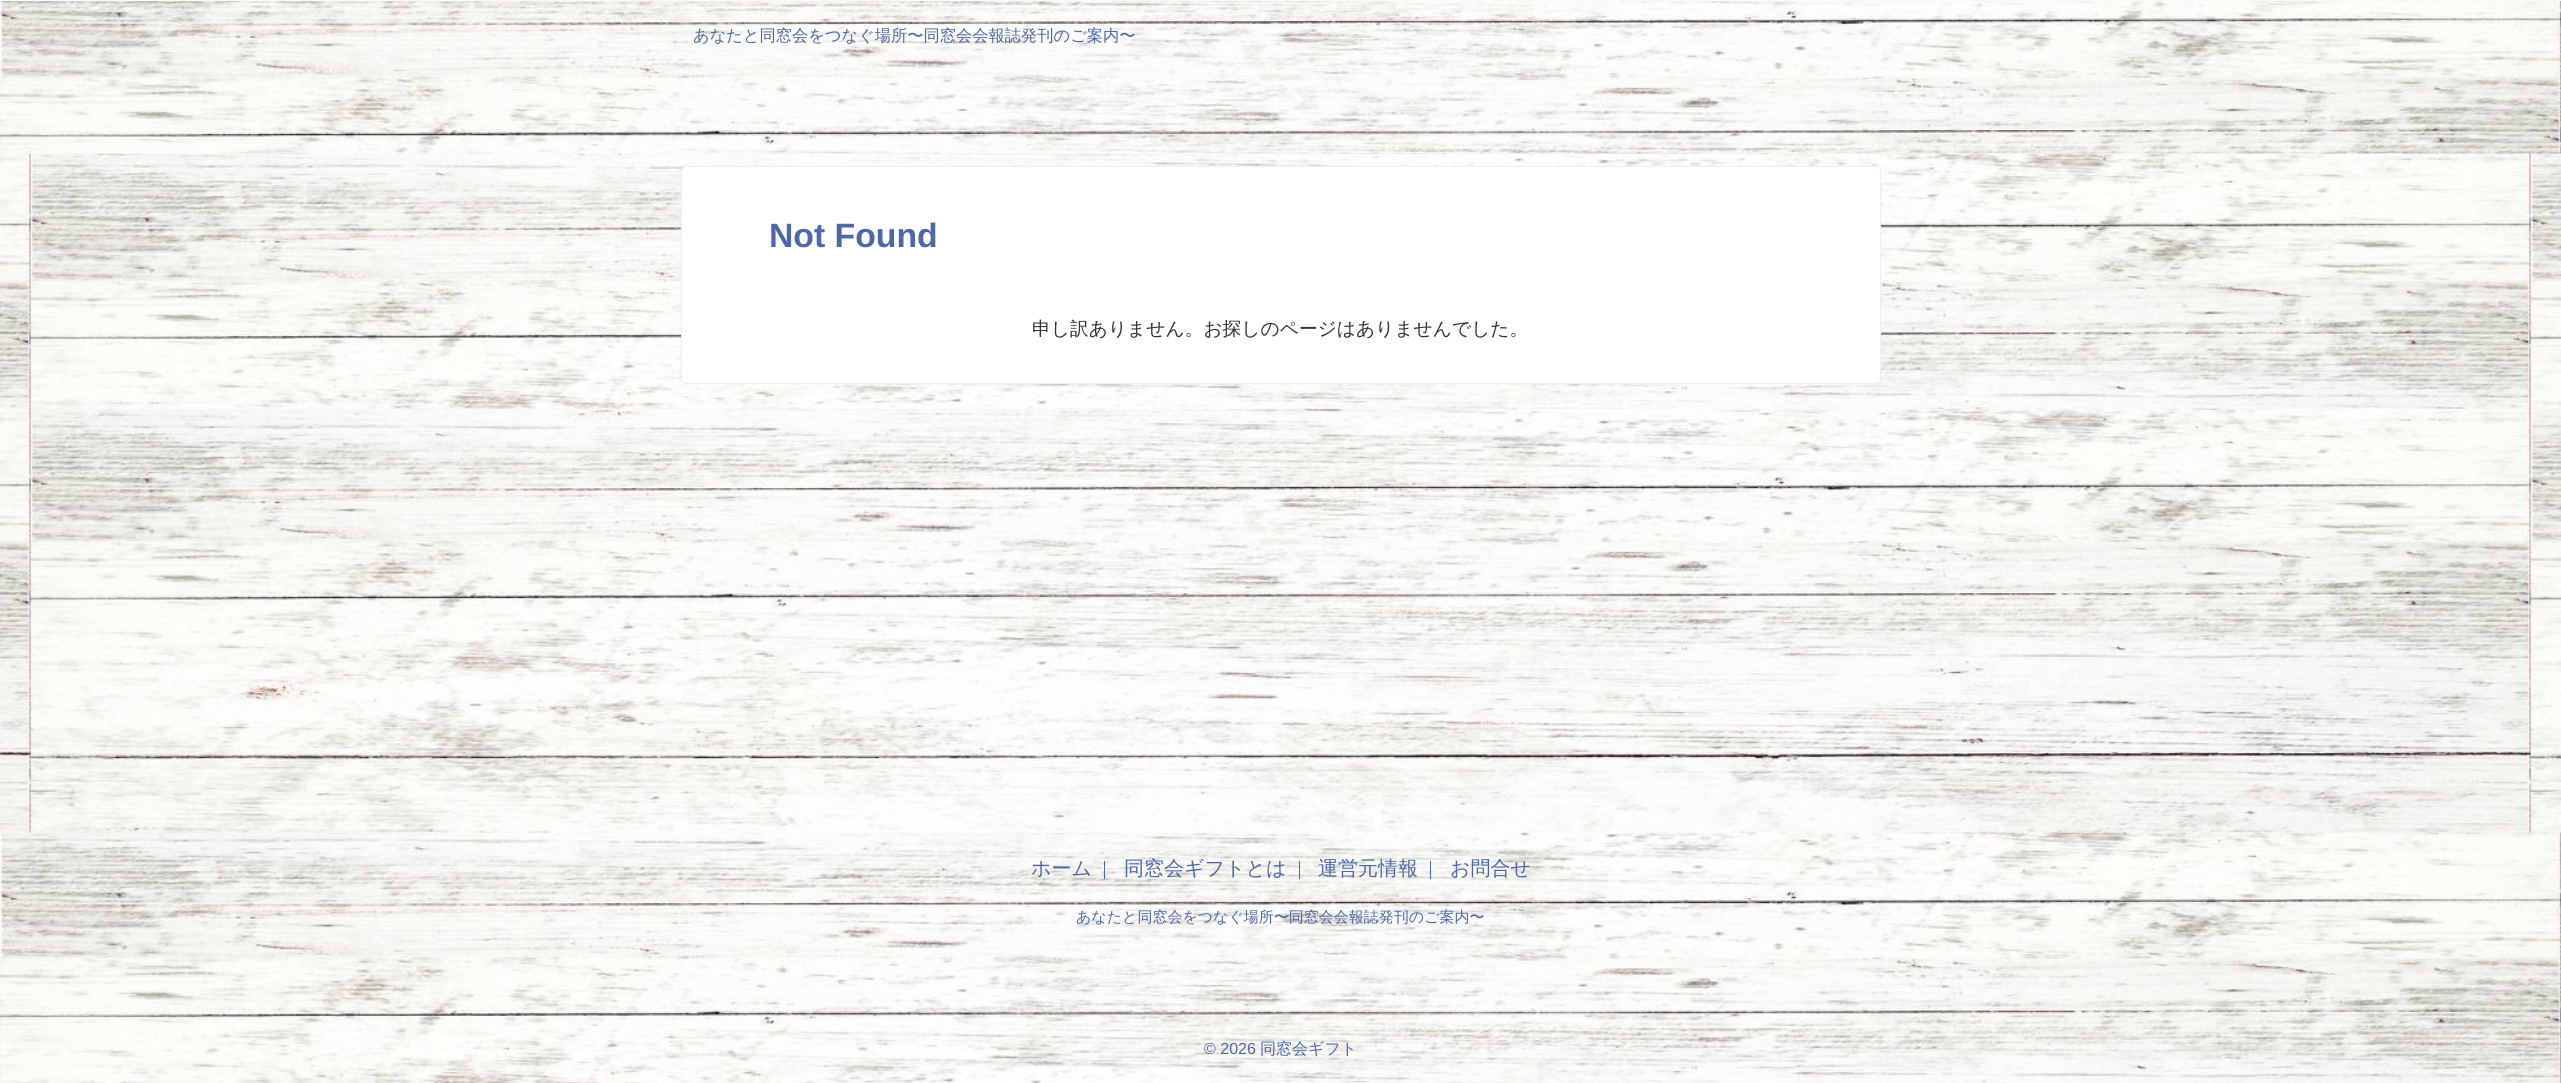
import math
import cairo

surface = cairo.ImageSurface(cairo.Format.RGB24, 2561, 1083)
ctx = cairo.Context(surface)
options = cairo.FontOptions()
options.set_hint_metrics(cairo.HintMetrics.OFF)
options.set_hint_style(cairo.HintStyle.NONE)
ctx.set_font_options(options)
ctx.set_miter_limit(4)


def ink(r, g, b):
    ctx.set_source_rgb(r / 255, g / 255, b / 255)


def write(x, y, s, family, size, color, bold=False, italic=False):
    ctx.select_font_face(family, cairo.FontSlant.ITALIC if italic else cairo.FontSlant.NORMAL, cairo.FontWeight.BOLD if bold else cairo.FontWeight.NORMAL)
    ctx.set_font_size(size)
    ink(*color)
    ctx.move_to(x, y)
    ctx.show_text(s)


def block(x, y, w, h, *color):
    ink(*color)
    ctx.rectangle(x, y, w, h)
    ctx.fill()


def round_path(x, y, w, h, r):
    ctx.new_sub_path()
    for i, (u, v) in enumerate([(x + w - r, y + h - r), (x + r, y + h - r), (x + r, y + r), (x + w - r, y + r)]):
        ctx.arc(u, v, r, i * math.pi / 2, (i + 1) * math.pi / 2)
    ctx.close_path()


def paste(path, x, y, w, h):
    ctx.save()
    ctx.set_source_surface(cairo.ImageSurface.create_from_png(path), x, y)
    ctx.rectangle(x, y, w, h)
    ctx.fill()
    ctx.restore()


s1 = dict(family="WenQuanYi Zen Hei Medium", size=16.25, color=(78, 104, 166))
s2 = dict(family="Liberation Sans", size=33.75, color=(78, 104, 166), bold=True)
s3 = dict(family="WenQuanYi Zen Hei Medium", size=18.75, color=(51, 51, 51))
s4 = dict(family="WenQuanYi Zen Hei Medium", size=20, color=(78, 104, 166))
s5 = dict(family="WenQuanYi Zen Hei Medium", size=15, color=(78, 104, 166))
s6 = dict(family="Liberation Sans", size=16, color=(78, 104, 166))
s7 = dict(family="WenQuanYi Zen Hei Medium", size=16, color=(78, 104, 166))

ink(255, 255, 255)
ctx.paint()
paste("pic1.png", 0, 1, 2561, 832)
block(0, 0, 2561, 1, 250, 250, 250)
paste("pic2.png", 0, 1, 2561, 153)
paste("pic3.png", 2, 1, 2559, 153)
write(693, 41, "あなたと同窓会をつなぐ場所〜同窓会会報誌発刊のご案内〜", **s1)
paste("pic4.png", 0, 153, 2561, 256)
ink(255, 255, 255)
round_path(681.5, 166.5, 1199, 217, 4.5)
ctx.fill_preserve()
ink(238, 238, 238)
ctx.set_line_width(1)
ctx.stroke()
write(769, 247, "Not Found", **s2)
write(1032, 335, "申し訳ありません。お探しのページはありませんでした。", **s3)
paste("pic5.png", 0, 832, 2561, 251)
write(1031, 875, "ホーム", **s4)
block(1104, 861, 1, 18, 78, 104, 166)
write(1124, 875, "同窓会ギフトとは", **s4)
block(1299, 861, 1, 18, 78, 104, 166)
write(1318, 875, "運営元情報", **s4)
block(1430, 861, 1, 18, 78, 104, 166)
write(1450, 875, "お問合せ", **s4)
write(1076, 922, "あなたと同窓会をつなぐ場所〜同窓会会報誌発刊のご案内〜", **s5)
write(1204, 1054, "© 2026", **s6)
write(1260, 1054, "同窓会ギフト", **s7)
surface.write_to_png("screenshot.png")
